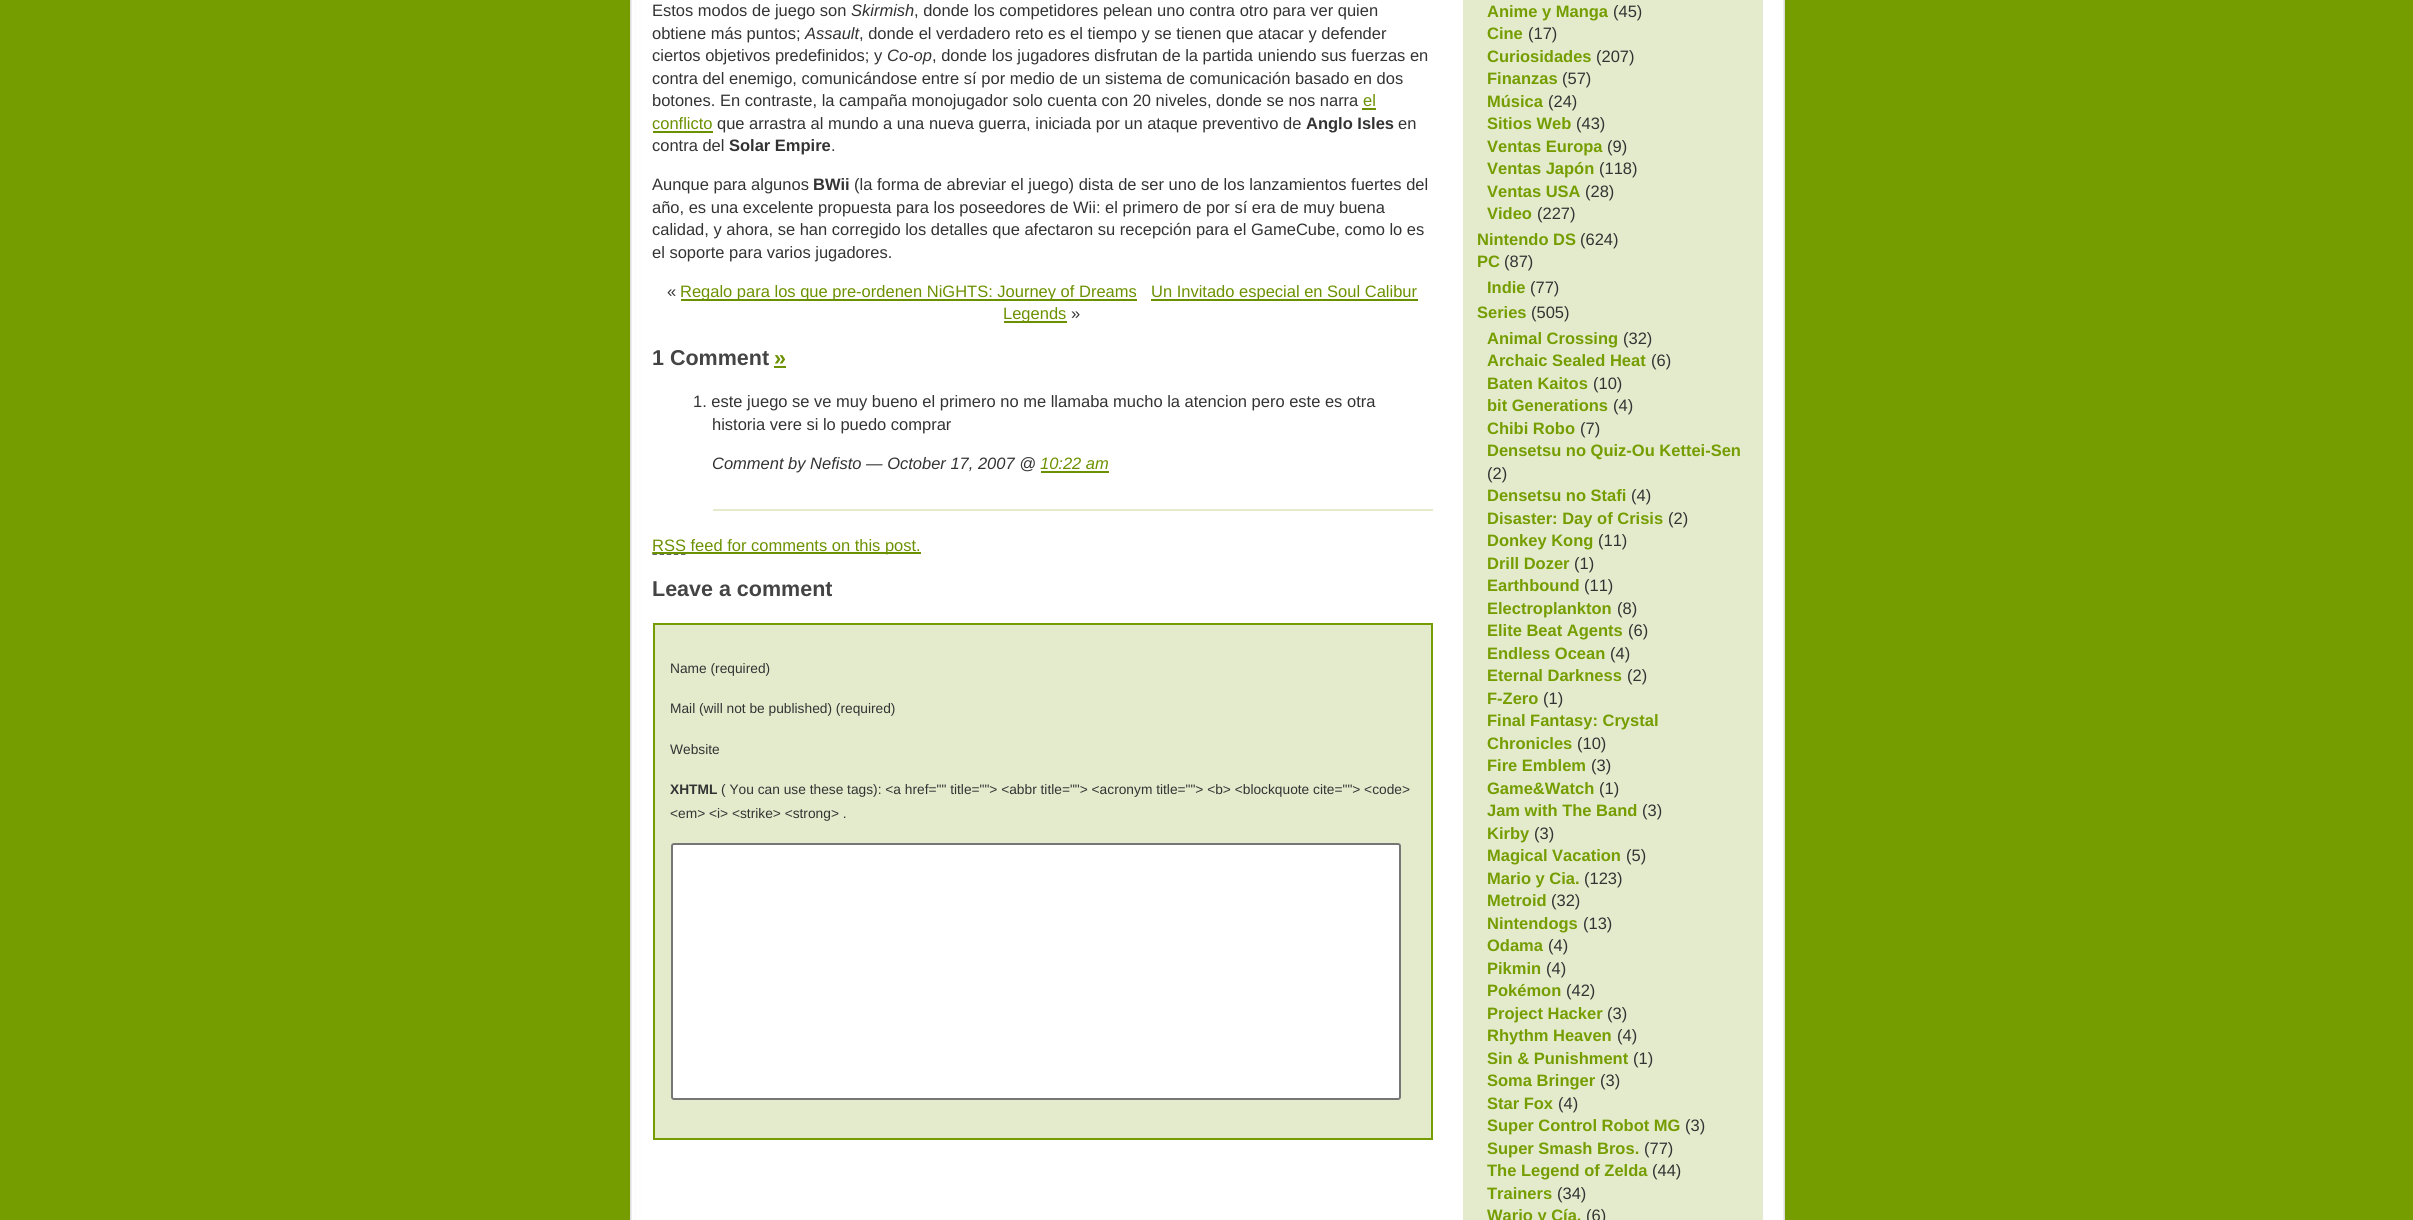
import math
import cairo

surface = cairo.ImageSurface(cairo.Format.RGB24, 2413, 1220)
ctx = cairo.Context(surface)
options = cairo.FontOptions()
options.set_hint_metrics(cairo.HintMetrics.OFF)
options.set_hint_style(cairo.HintStyle.NONE)
ctx.set_font_options(options)
ctx.set_miter_limit(4)


def ink(r, g, b):
    ctx.set_source_rgb(r / 255, g / 255, b / 255)


def write(x, y, s, family, size, color, bold=False, italic=False):
    ctx.select_font_face(family, cairo.FontSlant.ITALIC if italic else cairo.FontSlant.NORMAL, cairo.FontWeight.BOLD if bold else cairo.FontWeight.NORMAL)
    ctx.set_font_size(size)
    ink(*color)
    ctx.move_to(x, y)
    ctx.show_text(s)


def block(x, y, w, h, *color):
    ink(*color)
    ctx.rectangle(x, y, w, h)
    ctx.fill()


def round_path(x, y, w, h, r):
    ctx.new_sub_path()
    for i, (u, v) in enumerate([(x + w - r, y + h - r), (x + r, y + h - r), (x + r, y + r), (x + w - r, y + r)]):
        ctx.arc(u, v, r, i * math.pi / 2, (i + 1) * math.pi / 2)
    ctx.close_path()


def paste(path, x, y, w, h):
    ctx.save()
    ctx.set_source_surface(cairo.ImageSurface.create_from_png(path), x, y)
    ctx.rectangle(x, y, w, h)
    ctx.fill()
    ctx.restore()


s1 = dict(family="Liberation Sans", size=16.5, color=(51, 51, 51))
s2 = dict(family="Liberation Sans", size=16.5, color=(51, 51, 51), italic=True)
s3 = dict(family="Liberation Sans", size=16.5, color=(108, 145, 0))
s4 = dict(family="Liberation Sans", size=16.5, color=(51, 51, 51), bold=True)
s5 = dict(family="Liberation Sans", size=21.5, color=(68, 68, 68), bold=True)
s6 = dict(family="Liberation Sans", size=21.5, color=(108, 145, 0), bold=True)
s7 = dict(family="Liberation Sans", size=16.5, color=(108, 145, 0), italic=True)
s8 = dict(family="Liberation Sans", size=13.75, color=(51, 51, 51))
s9 = dict(family="Liberation Sans", size=13.75, color=(51, 51, 51), bold=True)
s10 = dict(family="Liberation Sans", size=16.5, color=(117, 157, 0), bold=True)

ink(117, 157, 0)
ctx.paint()
paste("pic1.png", 630, 0, 1155, 1220)
write(652, 16, "Estos modos de juego son", **s1)
write(851, 16, "Skirmish", **s2)
write(914, 16, ", donde los competidores pelean uno contra otro para ver quien", **s1)
write(652, 39, "obtiene más puntos;", **s1)
write(805, 39, "Assault", **s2)
write(859, 39, ", donde el verdadero reto es el tiempo y se tienen que atacar y defender", **s1)
write(652, 61, "ciertos objetivos predefinidos; y", **s1)
write(887, 61, "Co-op", **s2)
write(932, 61, ", donde los jugadores disfrutan de la partida uniendo sus fuerzas en", **s1)
write(652, 84, "contra del enemigo, comunicándose entre sí por medio de un sistema de comunicación basado en dos", **s1)
write(652, 106, "botones. En contraste, la campaña monojugador solo cuenta con 20 niveles, donde se nos narra", **s1)
write(1363, 106, "el", **s3)
block(1362, 108, 14, 2, 108, 145, 0)
write(652, 129, "conflicto", **s3)
block(653, 131, 60, 2, 108, 145, 0)
write(717, 129, "que arrastra al mundo a una nueva guerra, iniciada por un ataque preventivo de", **s1)
write(1306, 129, "Anglo Isles", **s4)
write(1398, 129, "en", **s1)
write(652, 151, "contra del", **s1)
write(729, 151, "Solar Empire", **s4)
write(831, 151, ".", **s1)
write(652, 190, "Aunque para algunos", **s1)
write(813, 190, "BWii", **s4)
write(854, 190, "(la forma de abreviar el juego) dista de ser uno de los lanzamientos fuertes del", **s1)
write(652, 213, "año, es una excelente propuesta para los poseedores de Wii: el primero de por sí era de muy buena", **s1)
write(652, 235, "calidad, y ahora, se han corregido los detalles que afectaron su recepción para el GameCube, como lo es", **s1)
write(652, 258, "el soporte para varios jugadores.", **s1)
write(667, 297, "«", **s1)
block(681, 299, 456, 2, 108, 145, 0)
write(680, 297, "Regalo para los que pre-ordenen NiGHTS: Journey of Dreams", **s3)
block(1151, 299, 267, 2, 108, 145, 0)
write(1151, 297, "Un Invitado especial en Soul Calibur", **s3)
block(1004, 321, 63, 2, 108, 145, 0)
write(1003, 319, "Legends", **s3)
write(1071, 319, "»", **s1)
write(652, 365, "1 Comment", **s5)
write(774, 365, "»", **s6)
block(774, 366, 12, 2, 108, 145, 0)
block(713, 509, 720, 2, 227, 235, 204)
write(693, 407, "1. este juego se ve muy bueno el primero no me llamaba mucho la atencion pero este es otra", **s1)
write(712, 430, "historia vere si lo puedo comprar", **s1)
write(712, 469, "Comment by Nefisto — October 17, 2007 @", **s2)
write(1040, 469, "10:22 am", **s7)
block(1041, 471, 68, 2, 108, 145, 0)
ctx.new_path()
ctx.move_to(652.5, 554)
ctx.line_to(685.5, 554)
ink(51, 51, 51)
ctx.set_line_width(1.5)
ctx.set_dash([4.5, 2.62])
ctx.stroke()
ctx.new_path()
ctx.move_to(652, 553)
ctx.line_to(685.5, 553)
ink(108, 145, 0)
ctx.set_dash([1.5, 1.5])
ctx.stroke()
block(653, 552, 268, 2, 108, 145, 0)
write(652, 551, "RSS feed for comments on this post.", **s3)
write(652, 596, "Leave a comment", **s5)
ink(227, 235, 204)
ctx.rectangle(654, 624, 778, 515)
ctx.fill_preserve()
ink(117, 157, 0)
ctx.set_line_width(2)
ctx.set_dash([])
ctx.stroke()
write(670, 673, "Name (required)", **s8)
write(670, 713, "Mail (will not be published) (required)", **s8)
write(670, 754, "Website", **s8)
write(670, 794, "XHTML", **s9)
write(721, 794, "( You can use these tags): <a href=\"\" title=\"\"> <abbr title=\"\"> <acronym title=\"\"> <b> <blockquote cite=\"\"> <code>", **s8)
write(670, 818, "<em> <i> <strike> <strong> .", **s8)
ink(255, 255, 255)
round_path(672, 844, 728, 255, 2)
ctx.fill_preserve()
ink(118, 118, 118)
ctx.stroke()
block(1463, 0, 300, 1220, 227, 235, 204)
write(1487, 17, "Anime y Manga", **s10)
write(1613, 17, "(45)", **s1)
write(1487, 39, "Cine", **s10)
write(1528, 39, "(17)", **s1)
write(1487, 62, "Curiosidades", **s10)
write(1596, 62, "(207)", **s1)
write(1487, 84, "Finanzas", **s10)
write(1562, 84, "(57)", **s1)
write(1487, 107, "Música", **s10)
write(1548, 107, "(24)", **s1)
write(1487, 129, "Sitios Web", **s10)
write(1576, 129, "(43)", **s1)
write(1487, 152, "Ventas Europa", **s10)
write(1607, 152, "(9)", **s1)
write(1487, 174, "Ventas Japón", **s10)
write(1599, 174, "(118)", **s1)
write(1487, 197, "Ventas USA", **s10)
write(1585, 197, "(28)", **s1)
write(1487, 219, "Video", **s10)
write(1537, 219, "(227)", **s1)
write(1477, 245, "Nintendo DS", **s10)
write(1580, 245, "(624)", **s1)
write(1477, 267, "PC", **s10)
write(1504, 267, "(87)", **s1)
write(1487, 293, "Indie", **s10)
write(1530, 293, "(77)", **s1)
write(1477, 318, "Series", **s10)
write(1531, 318, "(505)", **s1)
write(1487, 344, "Animal Crossing", **s10)
write(1623, 344, "(32)", **s1)
write(1487, 366, "Archaic Sealed Heat", **s10)
write(1651, 366, "(6)", **s1)
write(1487, 389, "Baten Kaitos", **s10)
write(1593, 389, "(10)", **s1)
write(1487, 411, "bit Generations", **s10)
write(1613, 411, "(4)", **s1)
write(1487, 434, "Chibi Robo", **s10)
write(1580, 434, "(7)", **s1)
write(1487, 456, "Densetsu no Quiz-Ou Kettei-Sen", **s10)
write(1487, 479, "(2)", **s1)
write(1487, 501, "Densetsu no Stafi", **s10)
write(1631, 501, "(4)", **s1)
write(1487, 524, "Disaster: Day of Crisis", **s10)
write(1668, 524, "(2)", **s1)
write(1487, 546, "Donkey Kong", **s10)
write(1598, 546, "(11)", **s1)
write(1487, 569, "Drill Dozer", **s10)
write(1574, 569, "(1)", **s1)
write(1487, 591, "Earthbound", **s10)
write(1584, 591, "(11)", **s1)
write(1487, 614, "Electroplankton", **s10)
write(1617, 614, "(8)", **s1)
write(1487, 636, "Elite Beat Agents", **s10)
write(1628, 636, "(6)", **s1)
write(1487, 659, "Endless Ocean", **s10)
write(1610, 659, "(4)", **s1)
write(1487, 681, "Eternal Darkness", **s10)
write(1627, 681, "(2)", **s1)
write(1487, 704, "F-Zero", **s10)
write(1543, 704, "(1)", **s1)
write(1487, 726, "Final Fantasy: Crystal", **s10)
write(1487, 749, "Chronicles", **s10)
write(1577, 749, "(10)", **s1)
write(1487, 771, "Fire Emblem", **s10)
write(1591, 771, "(3)", **s1)
write(1487, 794, "Game&Watch", **s10)
write(1599, 794, "(1)", **s1)
write(1487, 816, "Jam with The Band", **s10)
write(1642, 816, "(3)", **s1)
write(1487, 839, "Kirby", **s10)
write(1534, 839, "(3)", **s1)
write(1487, 861, "Magical Vacation", **s10)
write(1626, 861, "(5)", **s1)
write(1487, 884, "Mario y Cia.", **s10)
write(1584, 884, "(123)", **s1)
write(1487, 906, "Metroid", **s10)
write(1551, 906, "(32)", **s1)
write(1487, 929, "Nintendogs", **s10)
write(1583, 929, "(13)", **s1)
write(1487, 951, "Odama", **s10)
write(1548, 951, "(4)", **s1)
write(1487, 974, "Pikmin", **s10)
write(1546, 974, "(4)", **s1)
write(1487, 996, "Pokémon", **s10)
write(1566, 996, "(42)", **s1)
write(1487, 1019, "Project Hacker", **s10)
write(1607, 1019, "(3)", **s1)
write(1487, 1041, "Rhythm Heaven", **s10)
write(1617, 1041, "(4)", **s1)
write(1487, 1064, "Sin & Punishment", **s10)
write(1633, 1064, "(1)", **s1)
write(1487, 1086, "Soma Bringer", **s10)
write(1600, 1086, "(3)", **s1)
write(1487, 1109, "Star Fox", **s10)
write(1558, 1109, "(4)", **s1)
write(1487, 1131, "Super Control Robot MG", **s10)
write(1685, 1131, "(3)", **s1)
write(1487, 1154, "Super Smash Bros.", **s10)
write(1644, 1154, "(77)", **s1)
write(1487, 1176, "The Legend of Zelda", **s10)
write(1652, 1176, "(44)", **s1)
write(1487, 1199, "Trainers", **s10)
write(1557, 1199, "(34)", **s1)
write(1487, 1221, "Wario y Cía.", **s10)
write(1586, 1221, "(6)", **s1)
surface.write_to_png("screenshot.png")
